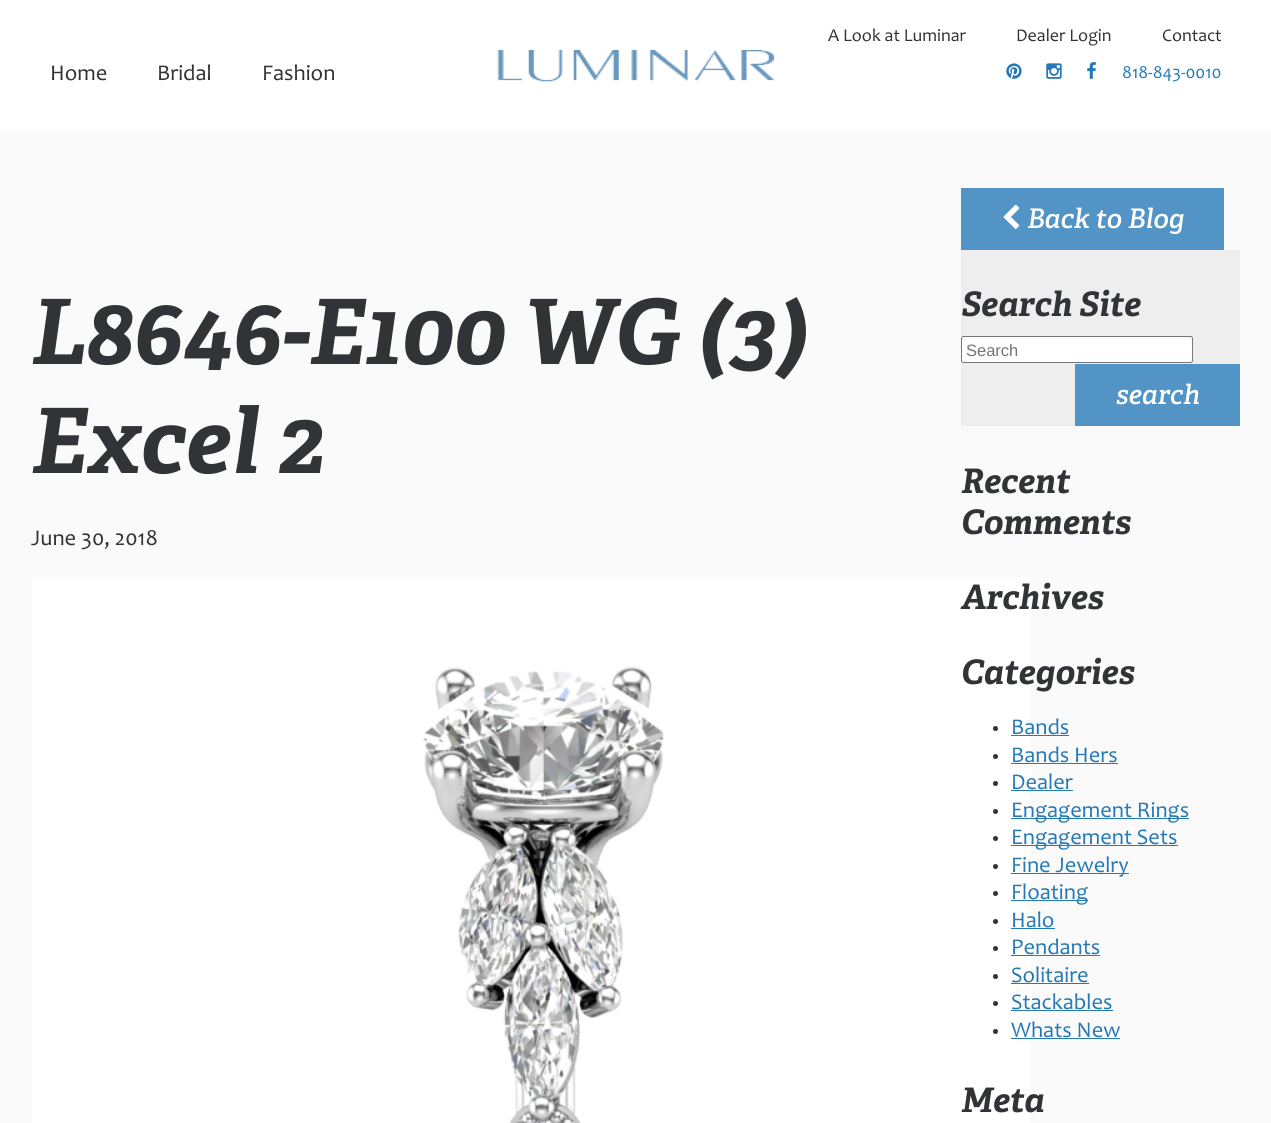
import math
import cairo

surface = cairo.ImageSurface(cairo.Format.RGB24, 1271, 1123)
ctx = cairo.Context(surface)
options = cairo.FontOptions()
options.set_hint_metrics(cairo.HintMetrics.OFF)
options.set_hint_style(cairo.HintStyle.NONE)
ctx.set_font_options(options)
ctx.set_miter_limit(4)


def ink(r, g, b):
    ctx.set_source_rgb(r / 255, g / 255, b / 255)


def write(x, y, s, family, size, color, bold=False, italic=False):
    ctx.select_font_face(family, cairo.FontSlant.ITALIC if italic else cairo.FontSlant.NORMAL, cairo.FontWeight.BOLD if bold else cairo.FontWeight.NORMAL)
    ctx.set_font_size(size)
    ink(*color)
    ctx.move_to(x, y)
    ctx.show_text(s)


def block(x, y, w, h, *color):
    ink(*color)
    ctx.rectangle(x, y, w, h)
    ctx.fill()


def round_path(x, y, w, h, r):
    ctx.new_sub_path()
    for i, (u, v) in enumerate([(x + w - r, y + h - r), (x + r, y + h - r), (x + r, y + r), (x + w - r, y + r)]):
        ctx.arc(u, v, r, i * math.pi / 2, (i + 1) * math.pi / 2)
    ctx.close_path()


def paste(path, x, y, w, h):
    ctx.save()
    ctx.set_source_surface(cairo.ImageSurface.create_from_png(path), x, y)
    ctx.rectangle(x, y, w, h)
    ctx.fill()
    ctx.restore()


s1 = dict(family="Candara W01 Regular", size=22.5, color=(50, 51, 55))
s2 = dict(family="Candara W01 Regular", size=18, color=(50, 51, 55))
s3 = dict(family="Candara W01 Regular", size=18, color=(37, 121, 183))
s4 = dict(family="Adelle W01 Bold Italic", size=90, color=(50, 51, 55), bold=True)
s5 = dict(family="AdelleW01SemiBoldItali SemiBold", size=27, color=(255, 255, 255))
s6 = dict(family="Adelle W01 Bold Italic", size=33.75, color=(50, 51, 55), bold=True)
s7 = dict(family="Liberation Sans", size=16.5, color=(117, 117, 117))
s8 = dict(family="Candara W01 Regular", size=22.5, color=(37, 121, 183))

ink(250, 250, 250)
ctx.paint()
block(0, 0, 1271, 131, 255, 255, 255)
write(50, 80, "Home", **s1)
write(157, 80, "Bridal", **s1)
write(262, 80, "Fashion", **s1)
write(828, 41, "A Look at Luminar", **s2)
write(1016, 41, "Dealer Login", **s2)
write(1162, 41, "Contact", **s2)
paste("pic1.png", 1006, 63, 16, 16)
paste("pic2.png", 1046, 63, 16, 16)
paste("pic3.png", 1087, 62, 9, 17)
write(1122, 78, "818-843-0010", **s3)
paste("pic4.png", 497, 50, 278, 32)
write(31, 364, "L8646-E100 WG (3)", **s4)
write(31, 473, "Excel 2", **s4)
write(31, 545, "June 30, 2018", **s1)
paste("pic5.png", 32, 577, 999, 546)
block(961, 188, 263, 62, 81, 148, 197)
paste("pic6.png", 1003, 204, 17, 25)
write(1027, 228, "Back to Blog", **s5)
block(961, 250, 279, 176, 238, 238, 238)
write(961, 316, "Search Site", **s6)
ink(255, 255, 255)
round_path(961.5, 336.5, 231, 26, 2)
ctx.fill_preserve()
ink(118, 118, 118)
ctx.set_line_width(1)
ctx.stroke()
write(966, 356, "Search", **s7)
block(1075, 364, 165, 62, 81, 148, 197)
write(1116, 404, "search", **s5)
write(961, 493, "Recent", **s6)
write(961, 534, "Comments", **s6)
write(961, 609, "Archives", **s6)
write(961, 684, "Categories", **s6)
ctx.new_path()
ctx.arc(995.5, 728.5, 2.5, 0, 2 * math.pi)
ctx.fill()
write(1011, 734, "Bands", **s8)
block(1011, 735, 58, 1, 37, 121, 183)
ink(50, 51, 55)
ctx.new_path()
ctx.arc(995.5, 756.5, 2.5, 0, 2 * math.pi)
ctx.fill()
write(1011, 762, "Bands Hers", **s8)
block(1011, 763, 107, 1, 37, 121, 183)
ink(50, 51, 55)
ctx.new_path()
ctx.arc(995.5, 783.5, 2.5, 0, 2 * math.pi)
ctx.fill()
write(1011, 789, "Dealer", **s8)
block(1011, 790, 62, 1, 37, 121, 183)
ink(50, 51, 55)
ctx.new_path()
ctx.arc(995.5, 811.5, 2.5, 0, 2 * math.pi)
ctx.fill()
block(1011, 818, 178, 1, 37, 121, 183)
write(1011, 817, "Engagement Rings", **s8)
ink(50, 51, 55)
ctx.new_path()
ctx.arc(995.5, 838.5, 2.5, 0, 2 * math.pi)
ctx.fill()
block(1011, 845, 167, 1, 37, 121, 183)
write(1011, 844, "Engagement Sets", **s8)
ink(50, 51, 55)
ctx.new_path()
ctx.arc(995.5, 866.5, 2.5, 0, 2 * math.pi)
ctx.fill()
block(1011, 873, 118, 1, 37, 121, 183)
write(1011, 872, "Fine Jewelry", **s8)
ink(50, 51, 55)
ctx.new_path()
ctx.arc(995.5, 893.5, 2.5, 0, 2 * math.pi)
ctx.fill()
block(1011, 900, 77, 1, 37, 121, 183)
write(1011, 899, "Floating", **s8)
ink(50, 51, 55)
ctx.new_path()
ctx.arc(995.5, 921.5, 2.5, 0, 2 * math.pi)
ctx.fill()
write(1011, 927, "Halo", **s8)
block(1011, 928, 44, 1, 37, 121, 183)
ink(50, 51, 55)
ctx.new_path()
ctx.arc(995.5, 948.5, 2.5, 0, 2 * math.pi)
ctx.fill()
write(1011, 954, "Pendants", **s8)
block(1011, 955, 89, 1, 37, 121, 183)
ink(50, 51, 55)
ctx.new_path()
ctx.arc(995.5, 976.5, 2.5, 0, 2 * math.pi)
ctx.fill()
write(1011, 982, "Solitaire", **s8)
block(1011, 983, 78, 1, 37, 121, 183)
ink(50, 51, 55)
ctx.new_path()
ctx.arc(995.5, 1003.5, 2.5, 0, 2 * math.pi)
ctx.fill()
write(1011, 1009, "Stackables", **s8)
block(1011, 1010, 102, 1, 37, 121, 183)
ink(50, 51, 55)
ctx.new_path()
ctx.arc(995.5, 1031.5, 2.5, 0, 2 * math.pi)
ctx.fill()
write(1011, 1037, "Whats New", **s8)
block(1011, 1038, 109, 1, 37, 121, 183)
write(961, 1112, "Meta", **s6)
surface.write_to_png("screenshot.png")
